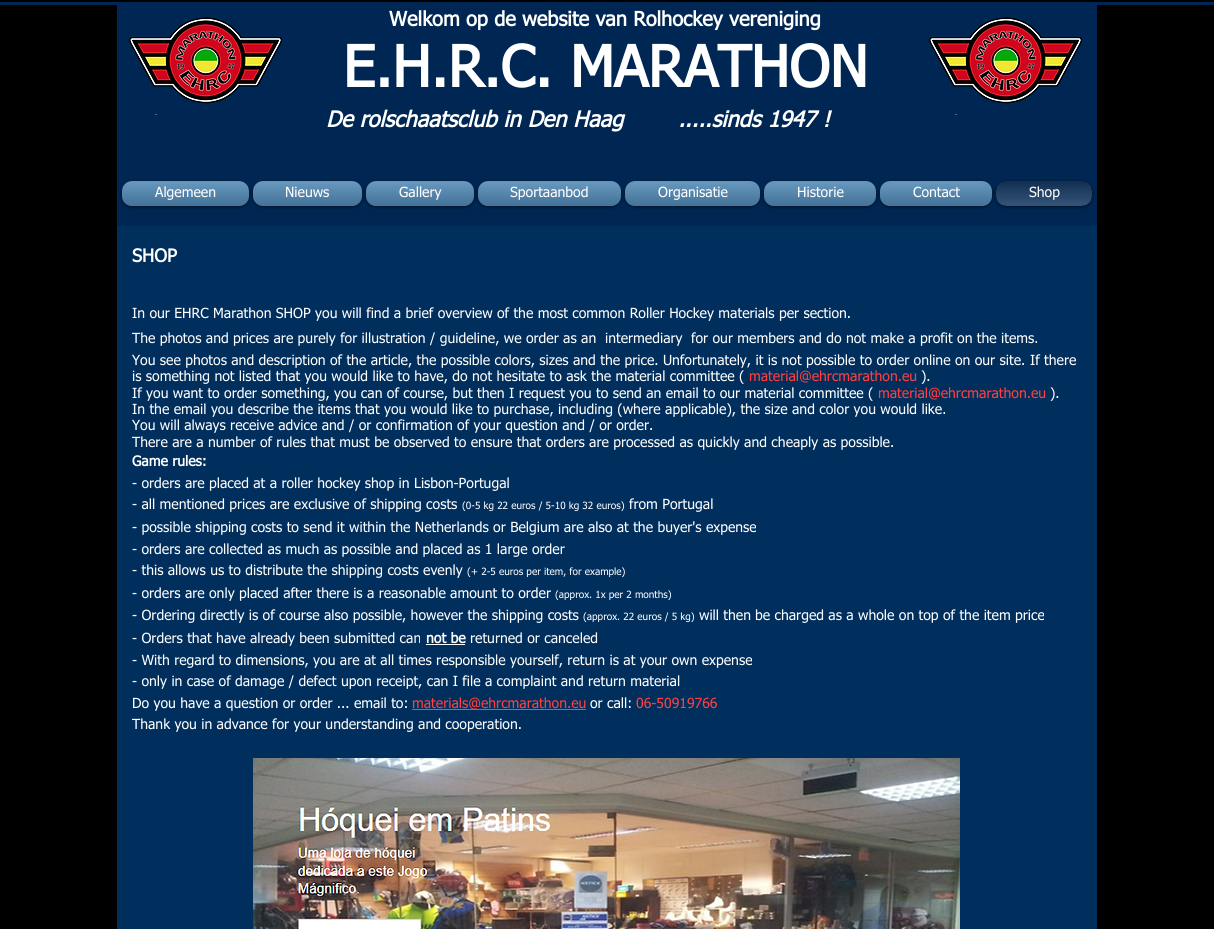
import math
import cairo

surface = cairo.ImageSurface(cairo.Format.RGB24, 1214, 929)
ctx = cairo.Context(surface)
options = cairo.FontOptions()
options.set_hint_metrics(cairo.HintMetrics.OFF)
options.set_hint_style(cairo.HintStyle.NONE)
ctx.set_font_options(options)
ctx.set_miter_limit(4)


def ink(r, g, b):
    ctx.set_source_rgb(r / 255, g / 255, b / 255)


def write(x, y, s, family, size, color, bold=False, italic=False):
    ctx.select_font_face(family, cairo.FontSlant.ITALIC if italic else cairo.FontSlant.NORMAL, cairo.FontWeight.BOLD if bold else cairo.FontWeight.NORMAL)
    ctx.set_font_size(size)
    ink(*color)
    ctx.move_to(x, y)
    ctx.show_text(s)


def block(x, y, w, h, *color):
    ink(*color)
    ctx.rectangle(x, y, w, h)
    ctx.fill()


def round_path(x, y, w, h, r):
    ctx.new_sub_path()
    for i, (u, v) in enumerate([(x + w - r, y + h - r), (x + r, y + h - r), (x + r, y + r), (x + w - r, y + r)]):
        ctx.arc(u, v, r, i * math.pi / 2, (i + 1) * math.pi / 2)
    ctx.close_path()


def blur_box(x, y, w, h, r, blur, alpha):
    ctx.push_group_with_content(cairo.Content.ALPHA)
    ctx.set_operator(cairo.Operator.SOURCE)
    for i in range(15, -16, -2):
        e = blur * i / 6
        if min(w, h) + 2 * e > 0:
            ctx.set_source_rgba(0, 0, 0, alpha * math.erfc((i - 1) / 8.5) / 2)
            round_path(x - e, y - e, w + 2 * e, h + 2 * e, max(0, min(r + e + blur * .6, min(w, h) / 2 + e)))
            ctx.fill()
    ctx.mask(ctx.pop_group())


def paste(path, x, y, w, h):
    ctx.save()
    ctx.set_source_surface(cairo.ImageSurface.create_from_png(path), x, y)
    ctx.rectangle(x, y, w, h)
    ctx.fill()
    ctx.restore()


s1 = dict(family="tahoma", size=20, color=(255, 255, 255), bold=True)
s2 = dict(family="tahoma", size=57, color=(255, 255, 255), bold=True)
s3 = dict(family="tahoma", size=22, color=(255, 255, 255), bold=True, italic=True)
s4 = dict(family="tahoma", size=14, color=(255, 255, 255))
s5 = dict(family="tahoma", size=18, color=(255, 255, 255), bold=True)
s6 = dict(family="tahoma", size=14, color=(255, 64, 64))
s7 = dict(family="tahoma", size=14, color=(255, 255, 255), bold=True)
s8 = dict(family="tahoma", size=10, color=(255, 255, 255))

ink(0, 0, 0)
ctx.paint()
block(117, 5, 980, 221, 0, 39, 84)
block(0, 2, 1214, 3, 0, 39, 84)
paste("pic1.png", 129, 17, 154, 98)
write(389, 26, "Welkom op de website van Rolhockey vereniging", **s1)
write(343, 87, "E.H.R.C. MARATHON", **s2)
paste("pic1.png", 929, 17, 154, 98)
write(326, 127, "De rolschaatsclub in Den Haag        .....sinds 1947 !", **s3)
ink(0, 0, 0)
blur_box(122, 182, 127, 25, 10, 2, 0.6)
ink(70, 130, 180)
round_path(122, 181, 127, 25, 10)
ctx.fill()
paste("pic2.png", 122, 181, 127, 25)
paste("pic3.png", 122, 181, 127, 25)
write(155, 197, "Algemeen", **s4)
ink(0, 0, 0)
blur_box(253, 182, 109, 25, 10, 2, 0.6)
ink(70, 130, 180)
round_path(253, 181, 109, 25, 10)
ctx.fill()
paste("pic4.png", 253, 181, 109, 25)
paste("pic5.png", 253, 181, 109, 25)
write(285, 197, "Nieuws", **s4)
ink(0, 0, 0)
blur_box(366, 182, 108, 25, 10, 2, 0.6)
ink(70, 130, 180)
round_path(366, 181, 108, 25, 10)
ctx.fill()
paste("pic6.png", 366, 181, 108, 25)
paste("pic7.png", 366, 181, 108, 25)
write(399, 197, "Gallery", **s4)
ink(0, 0, 0)
blur_box(478, 182, 143, 25, 10, 2, 0.6)
ink(70, 130, 180)
round_path(478, 181, 143, 25, 10)
ctx.fill()
paste("pic8.png", 478, 181, 143, 25)
paste("pic9.png", 478, 181, 143, 25)
write(510, 197, "Sportaanbod", **s4)
ink(0, 0, 0)
blur_box(625, 182, 135, 25, 10, 2, 0.6)
ink(70, 130, 180)
round_path(625, 181, 135, 25, 10)
ctx.fill()
paste("pic10.png", 625, 181, 135, 25)
paste("pic11.png", 625, 181, 135, 25)
write(658, 197, "Organisatie", **s4)
ink(0, 0, 0)
blur_box(764, 182, 112, 25, 10, 2, 0.6)
ink(70, 130, 180)
round_path(764, 181, 112, 25, 10)
ctx.fill()
paste("pic12.png", 764, 181, 112, 25)
paste("pic13.png", 764, 181, 112, 25)
write(797, 197, "Historie", **s4)
ink(0, 0, 0)
blur_box(880, 182, 112, 25, 10, 2, 0.6)
ink(70, 130, 180)
round_path(880, 181, 112, 25, 10)
ctx.fill()
paste("pic12.png", 880, 181, 112, 25)
paste("pic13.png", 880, 181, 112, 25)
write(913, 197, "Contact", **s4)
ink(0, 0, 0)
blur_box(996, 182, 96, 25, 10, 2, 0.6)
ink(0, 39, 84)
round_path(996, 181, 96, 25, 10)
ctx.fill()
paste("pic14.png", 996, 181, 96, 21)
paste("pic15.png", 996, 181, 96, 25)
write(1029, 197, "Shop", **s4)
block(117, 226, 980, 703, 0, 46, 93)
write(132, 262, "SHOP", **s5)
write(132, 318, "In our EHRC Marathon SHOP you will find a brief overview of the most common Roller Hockey materials per section.", **s4)
write(132, 343, "The photos and prices are purely for illustration / guideline, we order as an", **s4)
write(605, 343, "intermediary", **s4)
write(691, 343, "for our members and do not make a profit on the items.", **s4)
write(132, 365, "You see photos and description of the article, the possible colors, sizes and the price. Unfortunately, it is not possible to order online on our site.", **s4)
write(1030, 365, "If there", **s4)
write(132, 381, "is something not listed that you would like to have, do not hesitate to ask the material committee (", **s4)
write(749, 381, "material@ehrcmarathon.eu", **s6)
write(921, 381, ").", **s4)
write(132, 398, "If you want to order something, you can of course, but then I request you to send an email to our material committee (", **s4)
write(878, 398, "material@ehrcmarathon.eu", **s6)
write(1050, 398, ").", **s4)
write(132, 414, "In the email you describe the items that you would like to purchase, including (where applicable), the size and color you would like.", **s4)
write(132, 430, "You will always receive advice and / or confirmation of your question and / or order.", **s4)
write(132, 447, "There are a number of rules that must be observed to ensure that orders are processed as quickly and cheaply as possible.", **s4)
write(132, 466, "Game rules:", **s7)
write(132, 488, "- orders are placed at a roller hockey shop in Lisbon-Portugal", **s4)
write(132, 509, "- all mentioned prices are exclusive of shipping costs", **s4)
write(462, 509, "(0-5 kg 22 euros / 5-10 kg 32 euros)", **s8)
write(629, 509, "from Portugal", **s4)
write(132, 532, "- possible shipping costs to send it within the Netherlands or Belgium are also at the buyer's expense", **s4)
write(132, 554, "- orders are collected as much as possible and placed as 1 large order", **s4)
write(132, 575, "- this allows us to distribute the shipping costs evenly", **s4)
write(467, 575, "(+ 2-5 euros per item, for example)", **s8)
write(132, 598, "- orders are only placed after there is a reasonable amount to order", **s4)
write(555, 598, "(approx. 1x per 2 months)", **s8)
write(132, 620, "- Ordering directly is of course also possible, however the shipping costs", **s4)
write(583, 620, "(approx. 22 euros / 5 kg)", **s8)
write(699, 620, "will then", **s4)
write(755, 620, "be charged as a whole on top of the item price", **s4)
write(132, 643, "- Orders that have already been submitted can", **s4)
write(426, 643, "not be", **s7)
block(426, 644, 39, 1, 255, 255, 255)
write(470, 643, "returned or canceled", **s4)
write(132, 665, "- With regard to dimensions, you are at all times responsible yourself, return is at your own expense", **s4)
write(132, 686, "- only in case of damage / defect upon receipt, can I file a complaint and return material", **s4)
write(132, 708, "Do you have a question or order ... email to:", **s4)
block(412, 709, 174, 1, 255, 64, 64)
write(412, 708, "materials@ehrcmarathon.eu", **s6)
write(590, 708, "or call:", **s4)
write(636, 708, "06-50919766", **s6)
write(132, 729, "Thank you in advance for your understanding and cooperation.", **s4)
paste("pic16.png", 253, 758, 707, 171)
surface.write_to_png("screenshot.png")
